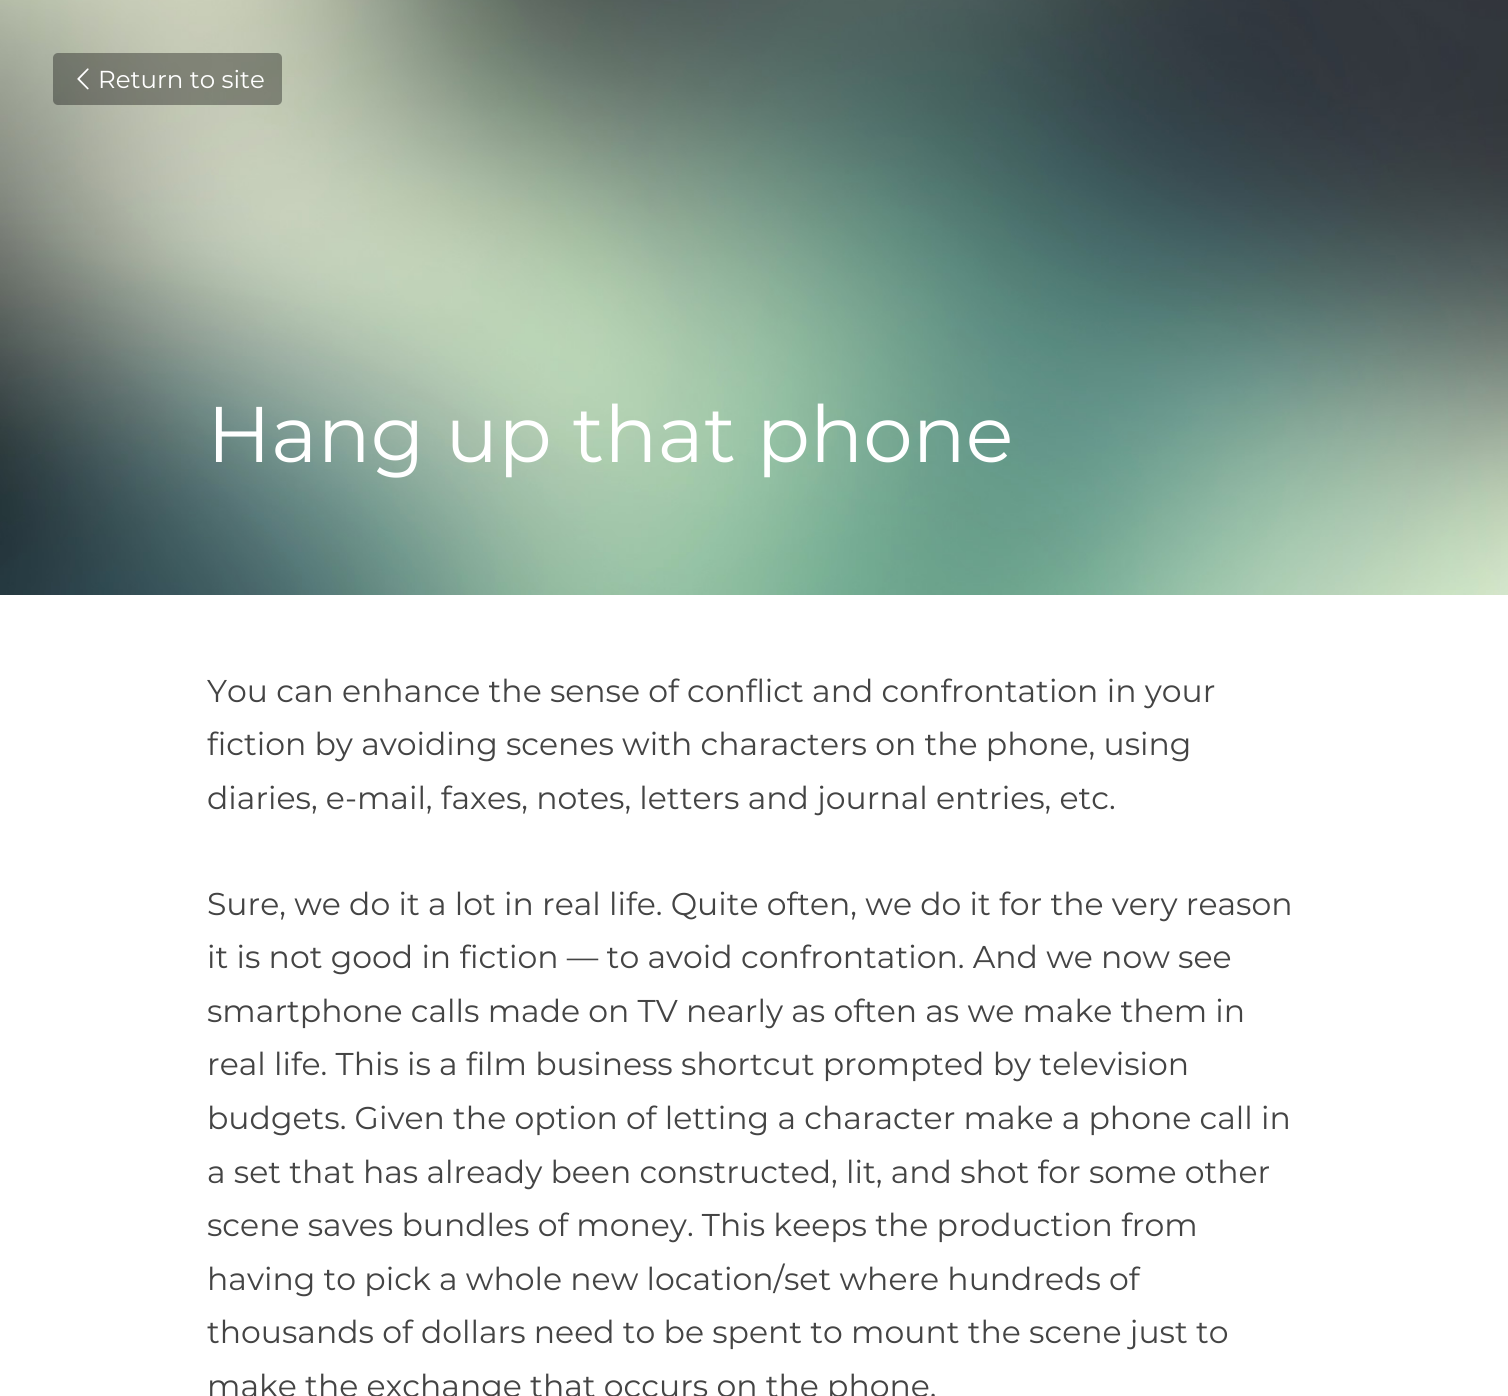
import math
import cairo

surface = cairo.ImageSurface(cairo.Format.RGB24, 1508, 1396)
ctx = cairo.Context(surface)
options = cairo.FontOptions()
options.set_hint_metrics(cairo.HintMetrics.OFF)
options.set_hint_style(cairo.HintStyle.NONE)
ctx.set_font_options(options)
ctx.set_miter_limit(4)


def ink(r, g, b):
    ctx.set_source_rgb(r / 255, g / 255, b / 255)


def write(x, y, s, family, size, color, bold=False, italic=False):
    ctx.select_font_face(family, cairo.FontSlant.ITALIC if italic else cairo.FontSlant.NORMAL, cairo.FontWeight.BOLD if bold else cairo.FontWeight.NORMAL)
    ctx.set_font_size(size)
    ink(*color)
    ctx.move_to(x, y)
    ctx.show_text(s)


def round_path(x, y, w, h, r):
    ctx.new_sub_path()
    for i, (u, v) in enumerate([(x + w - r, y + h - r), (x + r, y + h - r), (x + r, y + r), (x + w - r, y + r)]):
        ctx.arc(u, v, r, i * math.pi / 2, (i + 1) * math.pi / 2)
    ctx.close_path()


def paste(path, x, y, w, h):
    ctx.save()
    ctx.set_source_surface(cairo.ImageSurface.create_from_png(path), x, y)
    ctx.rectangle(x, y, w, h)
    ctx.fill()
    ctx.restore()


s1 = dict(family="Montserrat", size=24.5, color=(255, 255, 255))
s2 = dict(family="Montserrat", size=78.75, color=(255, 255, 255))
s3 = dict(family="Montserrat", size=31.5, color=(68, 68, 68))

ink(255, 255, 255)
ctx.paint()
paste("pic1.png", 0, 0, 1508, 595)
ctx.set_source_rgba(0, 0, 0, 0.35)
round_path(53, 53, 229, 52, 5)
ctx.fill()
paste("pic2.png", 77, 68, 12, 22)
write(98, 88, "Return to site", **s1)
write(207, 462, "Hang up that phone", **s2)
write(207, 702, "You can enhance the sense of conflict and confrontation in your", **s3)
write(207, 755, "fiction by avoiding scenes with characters on the phone, using", **s3)
write(207, 809, "diaries, e-mail, faxes, notes, letters and journal entries, etc.", **s3)
write(207, 915, "Sure, we do it a lot in real life. Quite often, we do it for the very reason", **s3)
write(207, 968, "it is not good in fiction — to avoid confrontation. And we now see", **s3)
write(207, 1022, "smartphone calls made on TV nearly as often as we make them in", **s3)
write(207, 1075, "real life. This is a film business shortcut prompted by television", **s3)
write(207, 1129, "budgets. Given the option of letting a character make a phone call in", **s3)
write(207, 1183, "a set that has already been constructed, lit, and shot for some other", **s3)
write(207, 1236, "scene saves bundles of money. This keeps the production from", **s3)
write(207, 1290, "having to pick a whole new location/set where hundreds of", **s3)
write(207, 1343, "thousands of dollars need to be spent to mount the scene just to", **s3)
write(207, 1397, "make the exchange that occurs on the phone.", **s3)
surface.write_to_png("screenshot.png")
